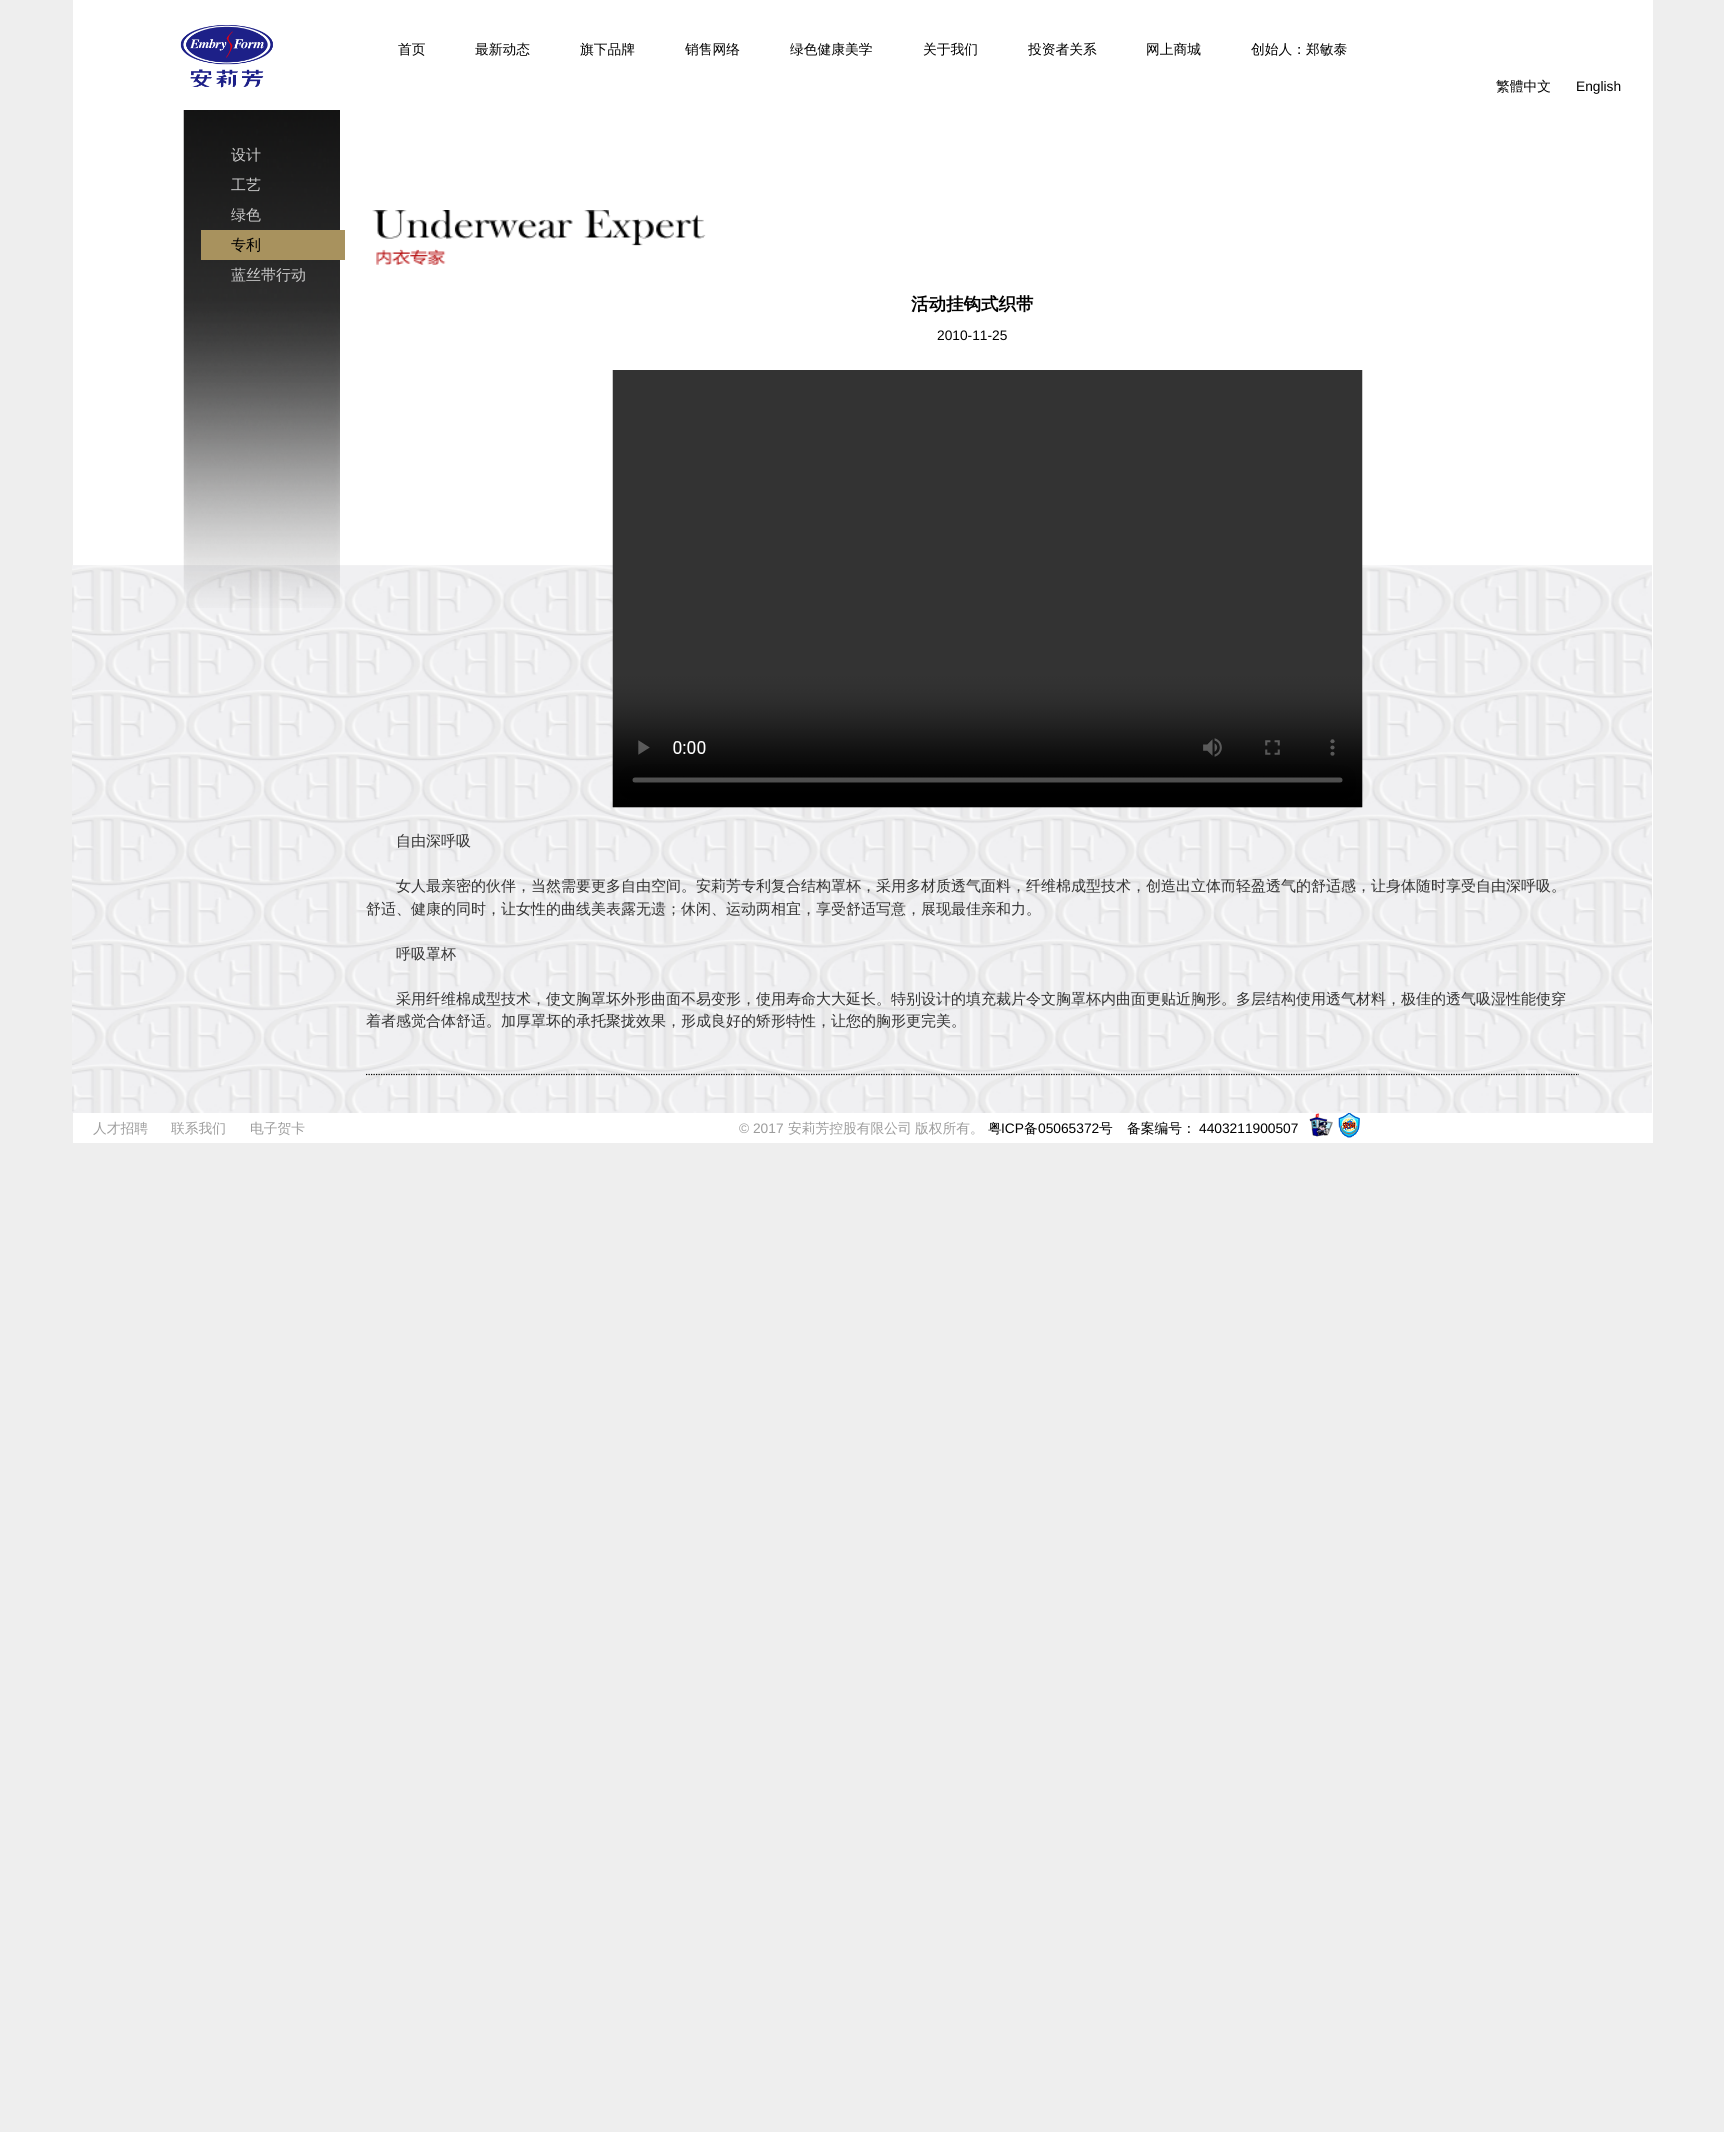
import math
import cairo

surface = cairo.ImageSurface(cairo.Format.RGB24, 1724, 2132)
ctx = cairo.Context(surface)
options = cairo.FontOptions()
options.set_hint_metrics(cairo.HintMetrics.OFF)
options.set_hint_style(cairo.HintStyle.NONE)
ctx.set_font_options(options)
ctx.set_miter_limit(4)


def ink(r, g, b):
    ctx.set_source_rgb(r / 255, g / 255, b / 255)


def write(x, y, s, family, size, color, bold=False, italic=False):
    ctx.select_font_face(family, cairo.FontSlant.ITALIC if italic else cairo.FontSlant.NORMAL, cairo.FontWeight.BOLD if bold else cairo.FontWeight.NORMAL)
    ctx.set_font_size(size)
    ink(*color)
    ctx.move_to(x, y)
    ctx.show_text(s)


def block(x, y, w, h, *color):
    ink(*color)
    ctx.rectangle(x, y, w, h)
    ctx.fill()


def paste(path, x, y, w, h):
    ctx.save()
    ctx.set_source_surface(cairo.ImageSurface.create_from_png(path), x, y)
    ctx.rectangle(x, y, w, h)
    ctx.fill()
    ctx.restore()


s1 = dict(family="WenQuanYi Zen Hei Medium", size=13.75, color=(0, 0, 0))
s2 = dict(family="Liberation Sans", size=13.75, color=(0, 0, 0))
s3 = dict(family="WenQuanYi Zen Hei Medium", size=15, color=(204, 204, 204))
s4 = dict(family="WenQuanYi Zen Hei Medium", size=15, color=(0, 0, 0))
s5 = dict(family="WenQuanYi Zen Hei", size=17.5, color=(0, 0, 0), bold=True)
s6 = dict(family="WenQuanYi Zen Hei Medium", size=15, color=(51, 51, 51))
s7 = dict(family="WenQuanYi Zen Hei Medium", size=13.75, color=(156, 156, 156))
s8 = dict(family="Liberation Sans", size=13.75, color=(156, 156, 156))

ink(238, 238, 238)
ctx.paint()
block(73, 0, 1580, 1143, 255, 255, 255)
paste("pic1.png", 180, 25, 93, 63)
write(398, 54, "首页", **s1)
write(475, 54, "最新动态", **s1)
write(580, 54, "旗下品牌", **s1)
write(685, 54, "销售网络", **s1)
write(790, 54, "绿色健康美学", **s1)
write(923, 54, "关于我们", **s1)
write(1028, 54, "投资者关系", **s1)
write(1146, 54, "网上商城", **s1)
write(1251, 54, "创始人：郑敏泰", **s1)
write(1496, 91, "繁體中文", **s1)
write(1576, 91, "English", **s2)
paste("pic2.png", 72, 565, 1580, 548)
paste("pic3.png", 183, 110, 157, 498)
write(231, 160, "设计", **s3)
write(231, 190, "工艺", **s3)
write(231, 220, "绿色", **s3)
block(201, 230, 144, 30, 168, 146, 94)
write(231, 250, "专利", **s4)
write(231, 280, "蓝丝带行动", **s3)
paste("pic4.png", 372, 210, 334, 55)
write(911, 310, "活动挂钩式织带", **s5)
write(937, 340, "2010-11-25", **s2)
ctx.new_path()
ctx.move_to(366, 1074.5)
ctx.line_to(1579, 1074.5)
ctx.set_line_width(1.2)
ctx.set_dash([1.25, 1.25])
ctx.stroke()
paste("pic5.png", 612, 370, 751, 438)
write(396, 846, "自由深呼吸", **s6)
write(396, 891, "女人最亲密的伙伴，当然需要更多自由空间。安莉芳专利复合结构罩杯，采用多材质透气面料，纤维棉成型技术，创造出立体而轻盈透气的舒适感，让身体随时享受自由深呼吸。", **s6)
write(366, 914, "舒适、健康的同时，让女性的曲线美表露无遗；休闲、运动两相宜，享受舒适写意，展现最佳亲和力。", **s6)
write(396, 959, "呼吸罩杯", **s6)
write(396, 1004, "采用纤维棉成型技术，使文胸罩坏外形曲面不易变形，使用寿命大大延长。特别设计的填充裁片令文胸罩杯内曲面更贴近胸形。多层结构使用透气材料，极佳的透气吸湿性能使穿", **s6)
write(366, 1026, "着者感觉合体舒适。加厚罩坏的承托聚拢效果，形成良好的矫形特性，让您的胸形更完美。", **s6)
write(93, 1133, "人才招聘", **s7)
write(171, 1133, "联系我们", **s7)
write(250, 1133, "电子贺卡", **s7)
write(739, 1133, "© 2017", **s8)
write(788, 1133, "安莉芳控股有限公司", **s7)
write(915, 1133, "版权所有。", **s7)
write(988, 1133, "粤", **s1)
write(1001, 1133, "ICP", **s2)
write(1024, 1133, "备", **s1)
write(1038, 1133, "05065372", **s2)
write(1099, 1133, "号", **s1)
write(1127, 1133, "备案编号：", **s1)
write(1199, 1133, "4403211900507", **s2)
paste("pic6.png", 1309, 1113, 24, 24)
paste("pic7.png", 1338, 1113, 22, 25)
surface.write_to_png("screenshot.png")
